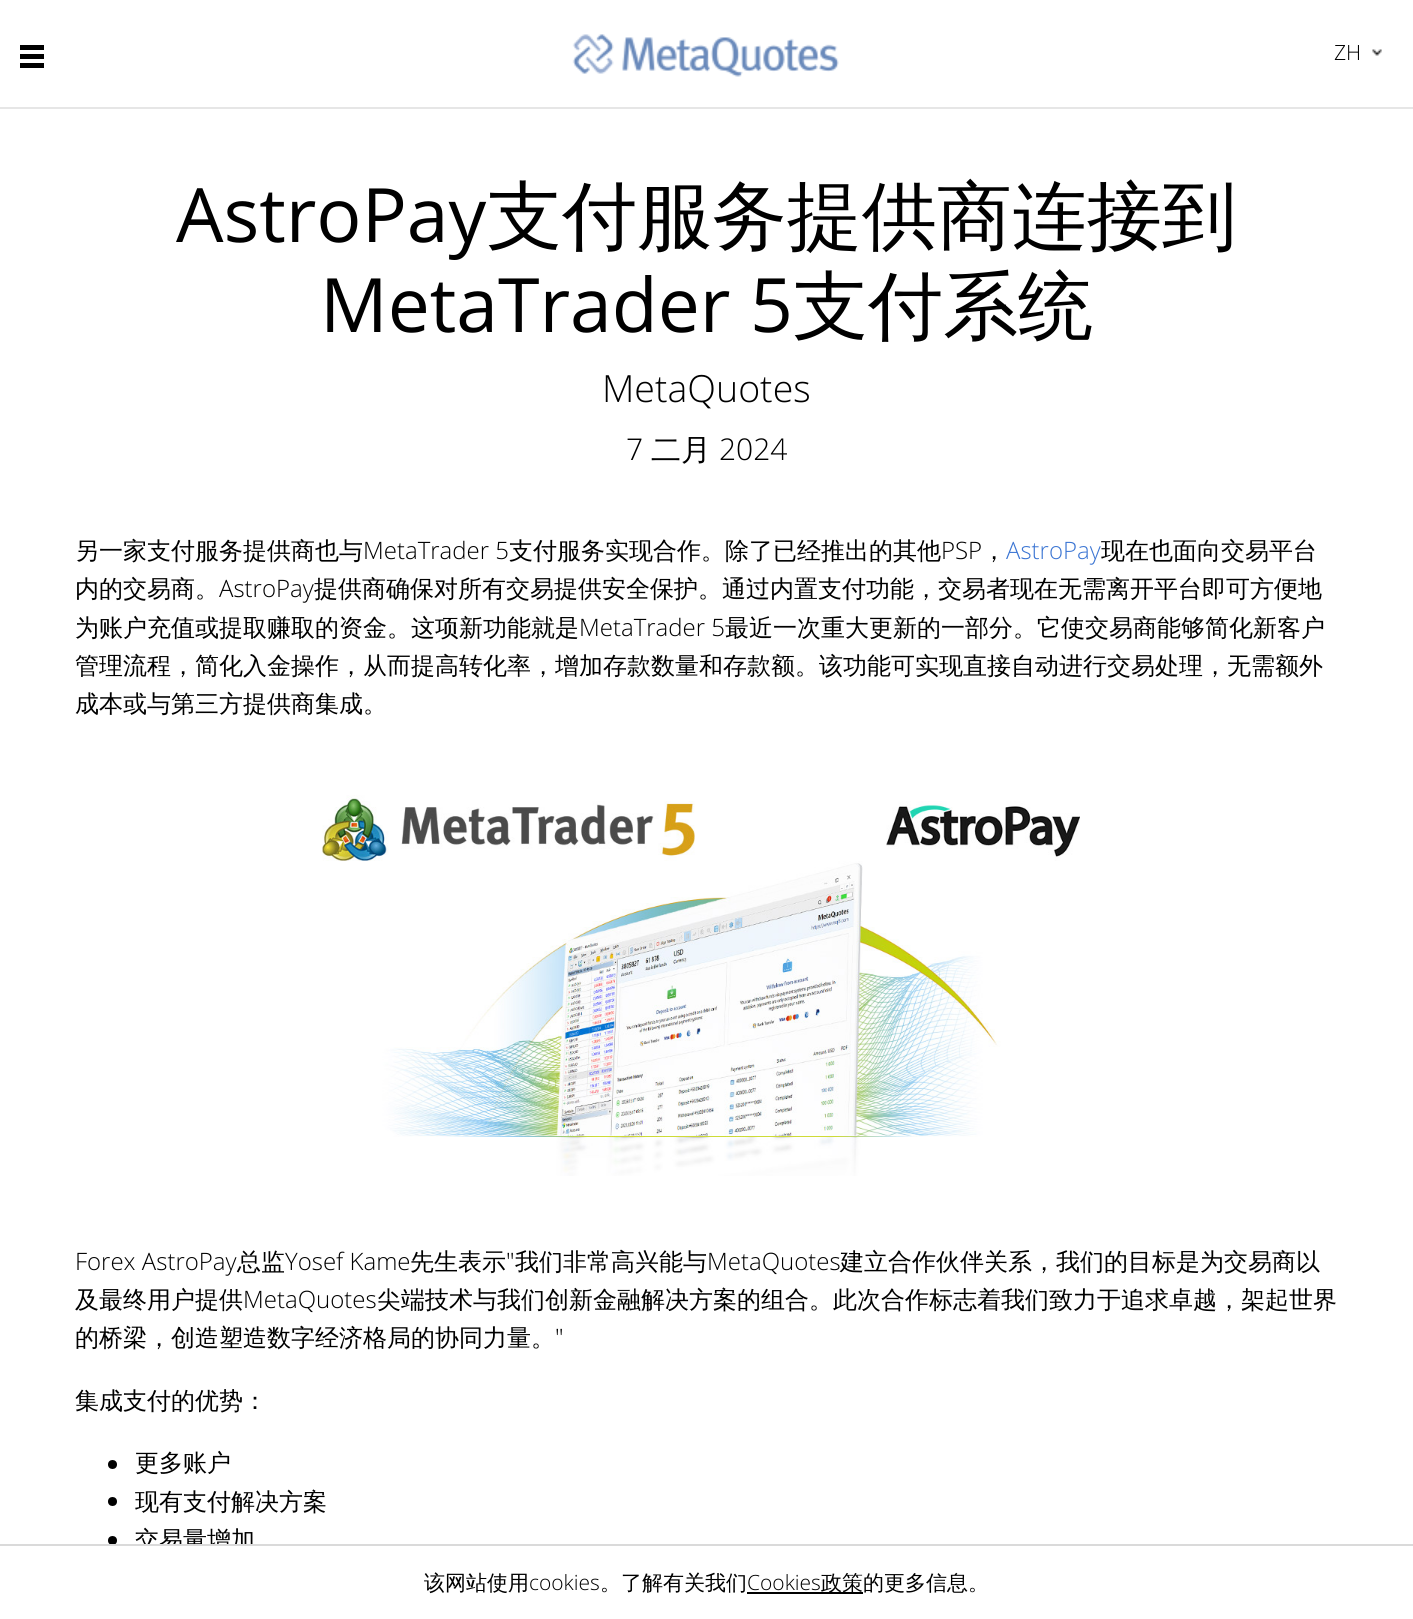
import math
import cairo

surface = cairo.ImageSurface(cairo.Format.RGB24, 1413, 1619)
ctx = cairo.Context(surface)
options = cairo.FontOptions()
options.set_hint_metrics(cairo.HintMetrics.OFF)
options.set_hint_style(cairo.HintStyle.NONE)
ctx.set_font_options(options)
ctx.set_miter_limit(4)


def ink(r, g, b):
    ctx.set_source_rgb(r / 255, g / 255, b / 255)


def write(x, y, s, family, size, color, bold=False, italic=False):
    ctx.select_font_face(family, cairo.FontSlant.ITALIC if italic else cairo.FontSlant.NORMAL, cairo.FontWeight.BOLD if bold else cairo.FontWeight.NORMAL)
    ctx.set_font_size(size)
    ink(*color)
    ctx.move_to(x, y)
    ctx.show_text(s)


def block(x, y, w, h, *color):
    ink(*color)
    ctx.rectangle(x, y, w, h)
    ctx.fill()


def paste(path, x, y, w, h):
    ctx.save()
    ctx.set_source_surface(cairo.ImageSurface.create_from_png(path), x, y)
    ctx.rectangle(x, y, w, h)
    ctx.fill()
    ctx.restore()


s1 = dict(family="Open Sans Light", size=21, color=(0, 0, 0))
s2 = dict(family="Open Sans", size=75, color=(0, 0, 0))
s3 = dict(family="WenQuanYi Zen Hei Medium", size=75, color=(0, 0, 0))
s4 = dict(family="Open Sans Light", size=37.5, color=(0, 0, 0))
s5 = dict(family="Open Sans Light", size=30, color=(0, 0, 0))
s6 = dict(family="WenQuanYi Zen Hei Medium", size=30, color=(0, 0, 0))
s7 = dict(family="WenQuanYi Zen Hei Medium", size=24, color=(0, 0, 0))
s8 = dict(family="Open Sans Light", size=24, color=(0, 0, 0))
s9 = dict(family="Open Sans Light", size=24, color=(59, 117, 211))
s10 = dict(family="WenQuanYi Zen Hei Medium", size=21, color=(0, 0, 0))

ink(255, 255, 255)
ctx.paint()
block(20, 45, 24, 5, 0, 0, 0)
block(20, 54, 24, 5, 0, 0, 0)
block(20, 63, 24, 5, 0, 0, 0)
paste("pic1.png", 572, 34, 267, 43)
write(1334, 60, "ZH", **s1)
paste("pic2.png", 1372, 49, 10, 7)
block(0, 107, 1413, 2, 230, 230, 230)
write(176, 242, "AstroPay", **s2)
write(487, 242, "支付服务提供商连接到", **s3)
write(320, 332, "MetaTrader 5", **s2)
write(793, 332, "支付系统", **s3)
write(602, 402, "MetaQuotes", **s4)
write(626, 460, "7", **s5)
write(651, 460, "二月", **s6)
write(719, 460, "2024", **s5)
write(75, 559, "另一家支付服务提供商也与", **s7)
write(363, 559, "MetaTrader 5", **s8)
write(509, 559, "支付服务实现合作。除了已经推出的其他", **s7)
write(941, 559, "PSP", **s8)
write(982, 559, "，", **s7)
write(1006, 559, "AstroPay", **s9)
write(1101, 559, "现在也面向交易平台", **s7)
write(75, 597, "内的交易商。", **s7)
write(219, 597, "AstroPay", **s8)
write(314, 597, "提供商确保对所有交易提供安全保护。通过内置支付功能，交易者现在无需离开平台即可方便地", **s7)
write(75, 636, "为账户充值或提取赚取的资金。这项新功能就是", **s7)
write(579, 636, "MetaTrader 5", **s8)
write(725, 636, "最近一次重大更新的一部分。它使交易商能够简化新客户", **s7)
write(75, 674, "管理流程，简化入金操作，从而提高转化率，增加存款数量和存款额。该功能可实现直接自动进行交易处理，无需额外", **s7)
write(75, 712, "成本或与第三方提供商集成。", **s7)
paste("pic3.png", 322, 795, 758, 381)
write(75, 1270, "Forex AstroPay", **s8)
write(237, 1270, "总监", **s7)
write(285, 1270, "Yosef Kame", **s8)
write(410, 1270, "先生表示", **s7)
write(506, 1270, "\"", **s8)
write(515, 1270, "我们非常高兴能与", **s7)
write(707, 1270, "MetaQuotes", **s8)
write(840, 1270, "建立合作伙伴关系，我们的目标是为交易商以", **s7)
write(75, 1308, "及最终用户提供", **s7)
write(243, 1308, "MetaQuotes", **s8)
write(377, 1308, "尖端技术与我们创新金融解决方案的组合。此次合作标志着我们致力于追求卓越，架起世界", **s7)
write(75, 1346, "的桥梁，创造塑造数字经济格局的协同力量。", **s7)
write(555, 1346, "\"", **s8)
write(75, 1409, "集成支付的优势：", **s7)
ctx.new_path()
ctx.arc(112.5, 1464.5, 4.5, 0, 2 * math.pi)
ctx.fill()
write(135, 1471, "更多账户", **s7)
ctx.new_path()
ctx.arc(112.5, 1501.5, 4.5, 0, 2 * math.pi)
ctx.fill()
write(135, 1510, "现有支付解决方案", **s7)
ctx.new_path()
ctx.arc(112.5, 1540.5, 4.5, 0, 2 * math.pi)
ctx.fill()
write(135, 1548, "交易量增加", **s7)
block(136, 1546, 117, 6, 255, 255, 255)
block(0, 1544, 1413, 2, 218, 218, 218)
write(424, 1590, "该网站使用", **s10)
write(529, 1590, "cookies", **s1)
write(600, 1590, "。了解有关我们", **s10)
write(747, 1590, "Cookies", **s1)
block(747, 1592, 116, 2, 0, 0, 0)
write(821, 1590, "政策的更多信息。", **s10)
surface.write_to_png("screenshot.png")
